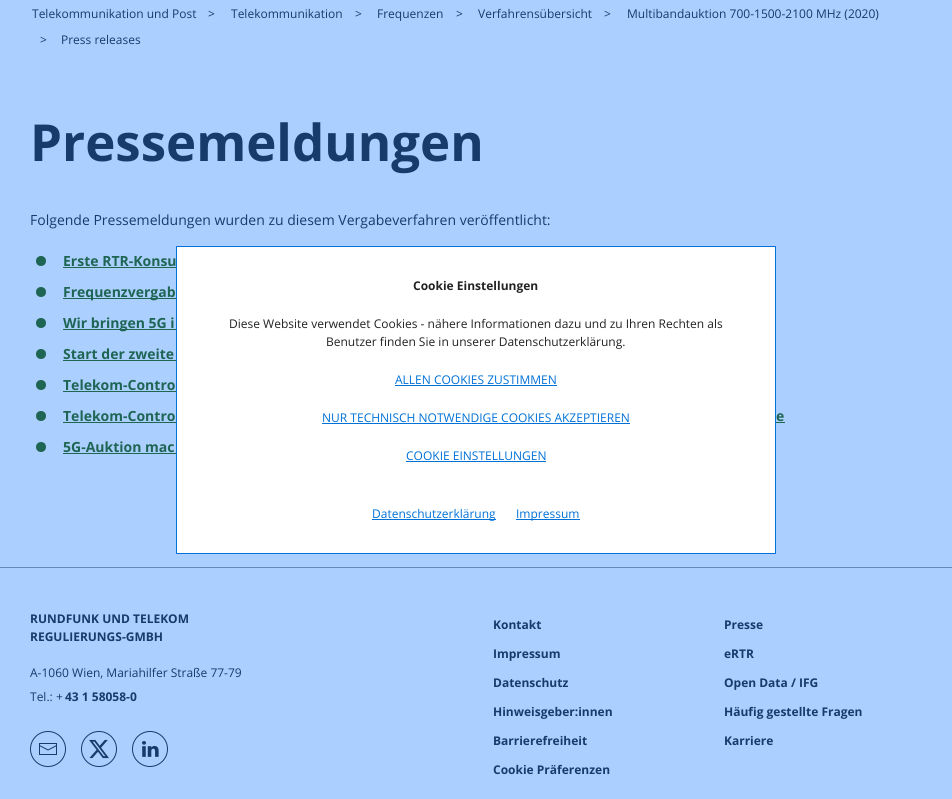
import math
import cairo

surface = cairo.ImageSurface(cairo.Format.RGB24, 952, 799)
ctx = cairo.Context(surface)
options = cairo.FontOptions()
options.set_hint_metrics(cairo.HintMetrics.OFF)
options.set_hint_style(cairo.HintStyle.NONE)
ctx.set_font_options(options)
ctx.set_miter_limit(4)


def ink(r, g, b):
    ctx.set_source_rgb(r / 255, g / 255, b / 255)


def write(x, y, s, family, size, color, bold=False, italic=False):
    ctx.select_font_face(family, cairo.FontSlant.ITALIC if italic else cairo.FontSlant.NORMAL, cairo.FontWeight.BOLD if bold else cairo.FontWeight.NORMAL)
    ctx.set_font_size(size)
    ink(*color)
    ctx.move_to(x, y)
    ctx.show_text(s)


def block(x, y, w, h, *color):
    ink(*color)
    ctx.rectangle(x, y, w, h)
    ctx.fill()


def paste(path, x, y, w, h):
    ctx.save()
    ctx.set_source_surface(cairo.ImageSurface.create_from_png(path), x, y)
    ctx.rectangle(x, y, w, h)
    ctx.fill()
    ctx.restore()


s1 = dict(family="Open Sans", size=12, color=(23, 60, 107))
s2 = dict(family="Open Sans", size=51, color=(23, 60, 107), bold=True)
s3 = dict(family="Open Sans", size=14, color=(23, 60, 107))
s4 = dict(family="Open Sans", size=14, color=(31, 101, 84), bold=True)
s5 = dict(family="Open Sans", size=12, color=(23, 60, 107), bold=True)
s6 = dict(family="Open Sans", size=12, color=(34, 34, 34), bold=True)
s7 = dict(family="Open Sans", size=12, color=(34, 34, 34))
s8 = dict(family="Open Sans", size=12, color=(0, 113, 215))

ink(171, 208, 255)
ctx.paint()
write(32, 18, "Telekommunikation und Post", **s1)
write(208, 18, ">", **s1)
write(231, 18, "Telekommunikation", **s1)
write(355, 18, ">", **s1)
write(377, 18, "Frequenzen", **s1)
write(456, 18, ">", **s1)
write(478, 18, "Verfahrensübersicht", **s1)
write(604, 18, ">", **s1)
write(627, 18, "Multibandauktion 700-1500-2100 MHz (2020)", **s1)
write(40, 44, ">", **s1)
write(61, 44, "Press releases", **s1)
write(30, 161, "Pressemeldungen", **s2)
write(30, 225, "Folgende Pressemeldungen wurden zu diesem Vergabeverfahren veröffentlicht:", **s3)
ink(31, 101, 84)
ctx.new_path()
ctx.arc(41, 261, 5, 0, 2 * math.pi)
ctx.fill()
write(63, 266, "Erste RTR-Konsu", **s4)
block(63, 267, 113, 1, 31, 101, 84)
ctx.new_path()
ctx.arc(41, 292, 5, 0, 2 * math.pi)
ctx.fill()
block(63, 298, 113, 1, 31, 101, 84)
write(63, 297, "Frequenzvergab", **s4)
ctx.new_path()
ctx.arc(41, 323, 5, 0, 2 * math.pi)
ctx.fill()
block(63, 329, 113, 1, 31, 101, 84)
write(63, 328, "Wir bringen 5G i", **s4)
ctx.new_path()
ctx.arc(41, 354, 5, 0, 2 * math.pi)
ctx.fill()
write(63, 359, "Start der zweite", **s4)
block(63, 360, 113, 1, 31, 101, 84)
ctx.new_path()
ctx.arc(41, 385, 5, 0, 2 * math.pi)
ctx.fill()
write(63, 390, "Telekom-Contro", **s4)
block(63, 391, 113, 1, 31, 101, 84)
ctx.new_path()
ctx.arc(41, 416, 5, 0, 2 * math.pi)
ctx.fill()
write(63, 421, "Telekom-Contro", **s4)
write(776, 421, "e", **s4)
block(63, 422, 722, 1, 31, 101, 84)
ctx.new_path()
ctx.arc(41, 447, 5, 0, 2 * math.pi)
ctx.fill()
write(63, 452, "5G-Auktion mac", **s4)
block(63, 453, 113, 1, 31, 101, 84)
block(0, 567, 952, 1, 101, 138, 185)
write(30, 623, "RUNDFUNK UND TELEKOM", **s5)
write(30, 641, "REGULIERUNGS-GMBH", **s5)
write(30, 677, "A-1060 Wien, Mariahilfer Straße 77-79", **s1)
write(30, 701, "Tel.: +", **s1)
write(65, 701, "43 1 58058-0", **s5)
ctx.new_path()
ctx.arc(48, 749, 17.5, 0, 2 * math.pi)
ctx.set_line_width(1)
ctx.stroke()
paste("pic1.png", 39, 743, 18, 12)
ctx.arc(99, 749, 17.5, 0, 2 * math.pi)
ctx.stroke()
paste("pic2.png", 89, 739, 20, 20)
ctx.arc(150, 749, 17.5, 0, 2 * math.pi)
ctx.stroke()
paste("pic3.png", 142, 741, 17, 16)
write(493, 629, "Kontakt", **s5)
write(493, 658, "Impressum", **s5)
write(493, 687, "Datenschutz", **s5)
write(493, 716, "Hinweisgeber:innen", **s5)
write(493, 745, "Barrierefreiheit", **s5)
write(493, 774, "Cookie Präferenzen", **s5)
write(724, 629, "Presse", **s5)
write(724, 658, "eRTR", **s5)
write(724, 687, "Open Data / IFG", **s5)
write(724, 716, "Häufig gestellte Fragen", **s5)
write(724, 745, "Karriere", **s5)
ink(255, 255, 255)
ctx.rectangle(176.5, 246.5, 599, 307)
ctx.fill_preserve()
ink(0, 113, 215)
ctx.stroke()
write(413, 290, "Cookie Einstellungen", **s6)
write(229, 328, "Diese Website verwendet Cookies - nähere Informationen dazu und zu Ihren Rechten als", **s7)
write(326, 346, "Benutzer finden Sie in unserer Datenschutzerklärung.", **s7)
write(395, 384, "ALLEN COOKIES ZUSTIMMEN", **s8)
block(395, 385, 162, 1, 0, 113, 215)
write(322, 422, "NUR TECHNISCH NOTWENDIGE COOKIES AKZEPTIEREN", **s8)
block(322, 423, 308, 1, 0, 113, 215)
write(406, 460, "COOKIE EINSTELLUNGEN", **s8)
block(406, 461, 140, 1, 0, 113, 215)
block(372, 519, 124, 1, 0, 113, 215)
write(372, 518, "Datenschutzerklärung", **s8)
block(516, 519, 64, 1, 0, 113, 215)
write(516, 518, "Impressum", **s8)
surface.write_to_png("screenshot.png")
